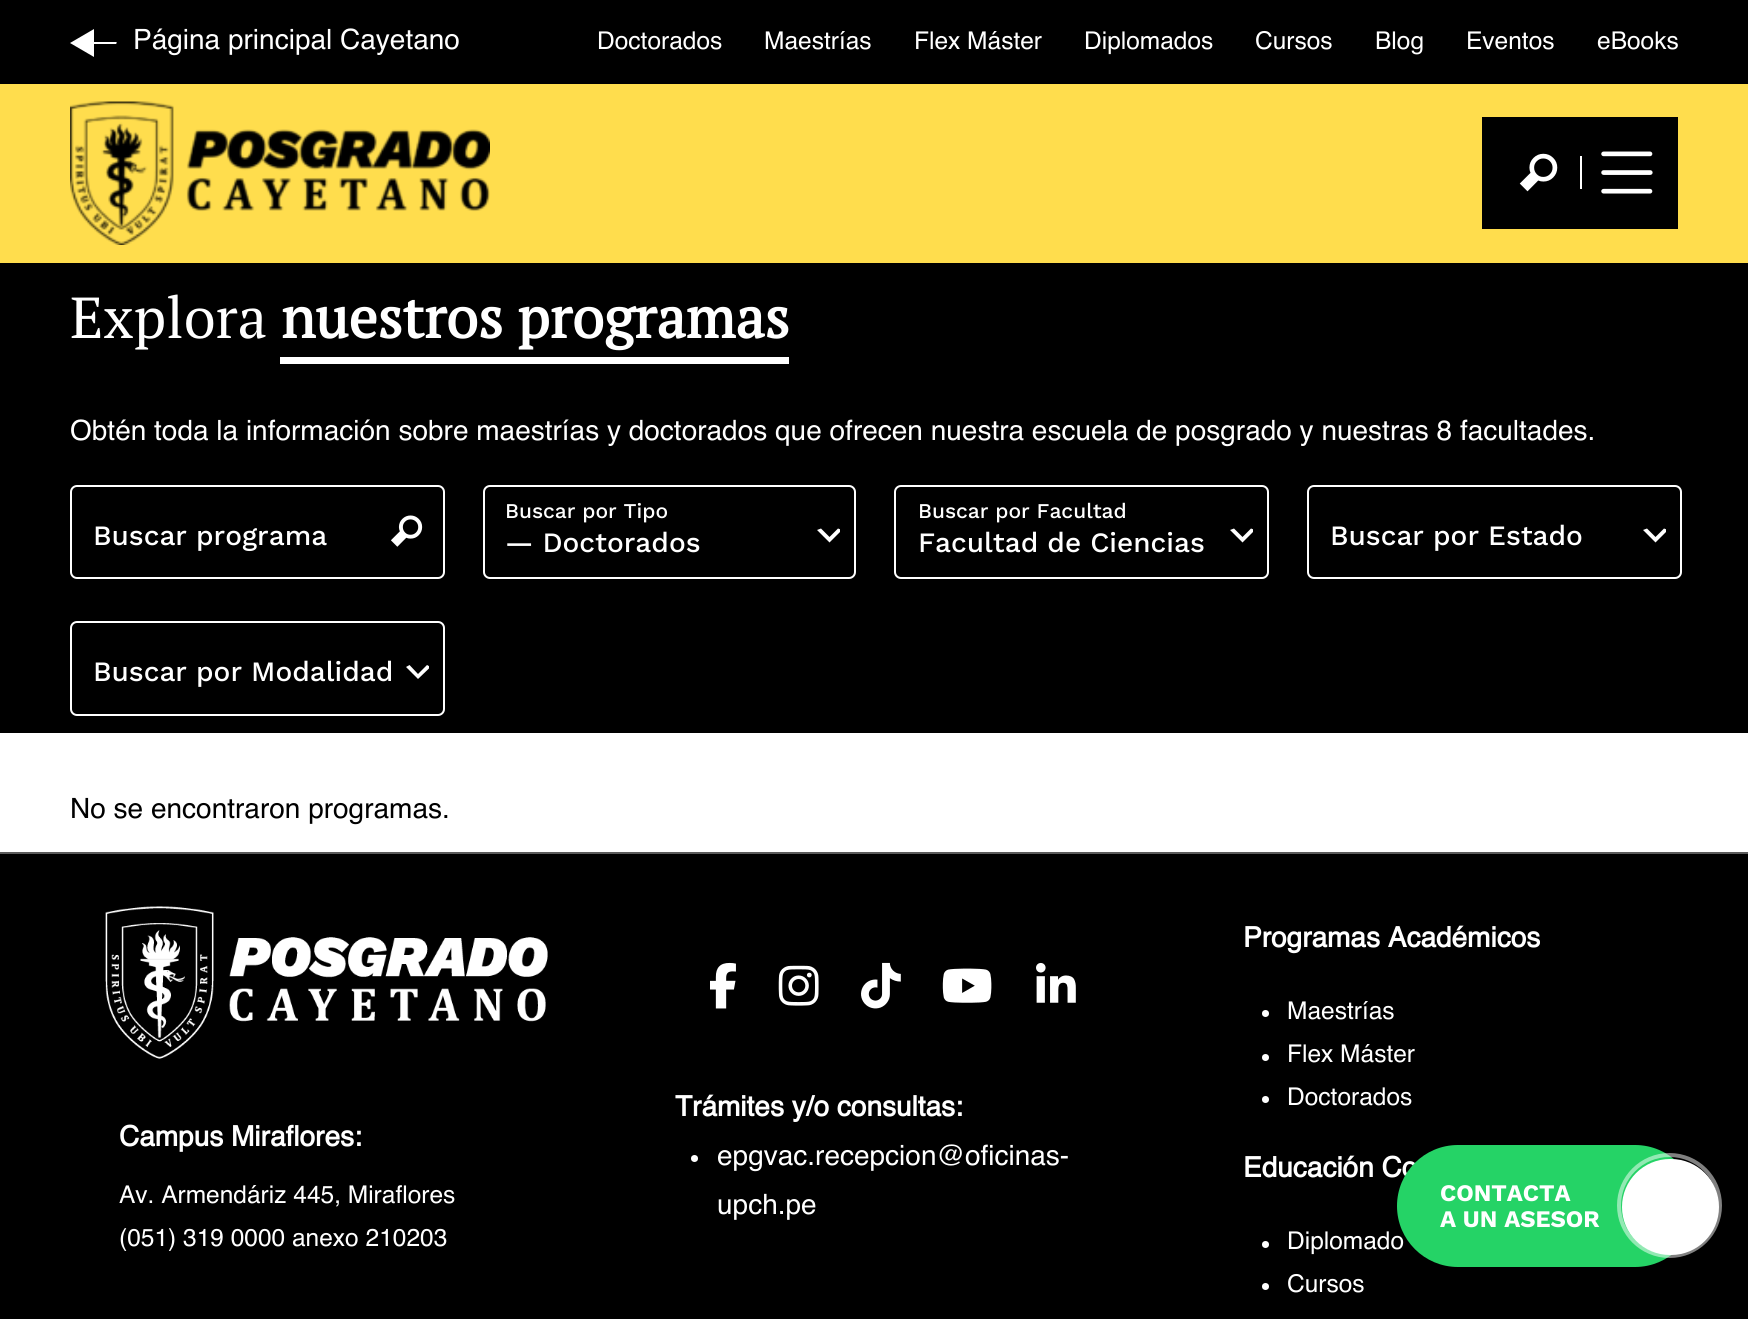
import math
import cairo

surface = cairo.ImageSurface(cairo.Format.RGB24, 1748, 1319)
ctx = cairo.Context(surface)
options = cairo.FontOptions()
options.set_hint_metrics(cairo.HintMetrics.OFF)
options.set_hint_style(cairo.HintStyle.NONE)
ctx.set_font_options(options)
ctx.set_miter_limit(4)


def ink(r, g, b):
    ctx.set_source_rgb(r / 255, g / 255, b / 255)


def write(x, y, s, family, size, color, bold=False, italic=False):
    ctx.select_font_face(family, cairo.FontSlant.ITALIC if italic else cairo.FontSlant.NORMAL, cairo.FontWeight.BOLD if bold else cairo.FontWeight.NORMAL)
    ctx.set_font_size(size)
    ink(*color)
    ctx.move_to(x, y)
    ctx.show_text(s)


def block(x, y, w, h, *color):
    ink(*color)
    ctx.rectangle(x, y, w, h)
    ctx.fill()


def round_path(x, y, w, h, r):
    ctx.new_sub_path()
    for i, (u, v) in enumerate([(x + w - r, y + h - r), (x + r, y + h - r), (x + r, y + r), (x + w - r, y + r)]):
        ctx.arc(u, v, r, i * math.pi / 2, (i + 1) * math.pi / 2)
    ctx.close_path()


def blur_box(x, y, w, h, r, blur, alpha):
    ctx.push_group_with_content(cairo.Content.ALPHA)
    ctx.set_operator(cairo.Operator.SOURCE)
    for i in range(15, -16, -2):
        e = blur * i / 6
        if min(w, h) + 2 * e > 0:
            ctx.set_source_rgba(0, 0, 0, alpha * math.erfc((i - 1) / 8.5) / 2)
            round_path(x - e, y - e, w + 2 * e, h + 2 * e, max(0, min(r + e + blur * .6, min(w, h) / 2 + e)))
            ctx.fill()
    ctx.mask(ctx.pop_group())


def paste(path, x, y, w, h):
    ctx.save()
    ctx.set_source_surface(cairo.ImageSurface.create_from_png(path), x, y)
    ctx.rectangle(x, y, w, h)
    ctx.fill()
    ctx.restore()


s1 = dict(family="Helvetica", size=28, color=(255, 255, 255))
s2 = dict(family="Helvetica", size=24.5, color=(255, 255, 255))
s3 = dict(family="PT Serif", size=57.75, color=(255, 255, 255))
s4 = dict(family="PT Serif", size=57.75, color=(255, 255, 255), bold=True)
s5 = dict(family="Work Sans Medium", size=28, color=(255, 255, 255))
s6 = dict(family="Work Sans Medium", size=21, color=(255, 255, 255))
s7 = dict(family="Helvetica", size=28, color=(0, 0, 0))
s8 = dict(family="Helvetica", size=28, color=(255, 255, 255), bold=True)
s9 = dict(family="Work Sans", size=23.75, color=(255, 255, 255), bold=True)

ink(255, 255, 255)
ctx.paint()
block(0, 0, 1748, 84, 0, 0, 0)
ink(255, 255, 255)
ctx.new_path()
ctx.move_to(116, 42)
ctx.line_to(94, 42)
ctx.line_to(94, 29)
ctx.line_to(70, 43)
ctx.line_to(94, 57)
ctx.line_to(94, 44)
ctx.line_to(116, 44)
ctx.curve_to(117, 43, 117, 42, 116, 42)
ctx.close_path()
ctx.fill()
write(133, 49, "Página principal Cayetano", **s1)
write(597, 49, "Doctorados", **s2)
write(764, 49, "Maestrías", **s2)
write(914, 49, "Flex Máster", **s2)
write(1084, 49, "Diplomados", **s2)
write(1255, 49, "Cursos", **s2)
write(1375, 49, "Blog", **s2)
write(1466, 49, "Eventos", **s2)
write(1597, 49, "eBooks", **s2)
block(0, 84, 1748, 179, 255, 221, 77)
paste("pic1.png", 70, 101, 420, 144)
block(1482, 117, 196, 112, 0, 0, 0)
paste("pic2.png", 1519, 153, 39, 39)
block(1580, 156, 2, 33, 255, 255, 255)
paste("pic3.png", 1601, 151, 52, 43)
block(0, 263, 1748, 470, 0, 0, 0)
write(70, 338, "Explora", **s3)
write(281, 338, "nuestros programas", **s4)
block(280, 357, 509, 7, 255, 255, 255)
write(70, 440, "Obtén toda la información sobre maestrías y doctorados que ofrecen nuestra escuela de posgrado y nuestras 8 facultades.", **s1)
round_path(71, 486, 373, 92, 6)
ctx.stroke()
write(93, 545, "Buscar programa", **s5)
paste("pic4.png", 391, 515, 32, 32)
round_path(484, 486, 371, 92, 6)
ctx.stroke()
write(505, 518, "Buscar por Tipo", **s6)
ctx.save()
ctx.rectangle(812, 518, 28, 28)
ctx.clip()
ctx.new_path()
ctx.move_to(821, 528.5)
ctx.line_to(829.5, 537)
ctx.line_to(838, 528.5)
ctx.line_to(842, 530)
ctx.line_to(829.5, 542.5)
ctx.line_to(817, 530)
ctx.close_path()
ctx.fill()
ctx.restore()
write(505, 552, "— Doctorados", **s5)
round_path(895, 486, 373, 92, 6)
ctx.stroke()
write(918, 518, "Buscar por Facultad", **s6)
ctx.save()
ctx.rectangle(1225, 518, 28, 28)
ctx.clip()
ctx.new_path()
ctx.move_to(1234, 528.5)
ctx.line_to(1242.5, 537)
ctx.line_to(1251, 528.5)
ctx.line_to(1255, 530)
ctx.line_to(1242.5, 542.5)
ctx.line_to(1230, 530)
ctx.close_path()
ctx.fill()
ctx.restore()
write(918, 552, "Facultad de Ciencias", **s5)
round_path(1308, 486, 373, 92, 6)
ctx.stroke()
write(1330, 545, "Buscar por Estado", **s5)
ctx.save()
ctx.rectangle(1638, 518, 28, 28)
ctx.clip()
ctx.new_path()
ctx.move_to(1647, 528.5)
ctx.line_to(1655.5, 537)
ctx.line_to(1664, 528.5)
ctx.line_to(1668, 530)
ctx.line_to(1655.5, 542.5)
ctx.line_to(1643, 530)
ctx.close_path()
ctx.fill()
ctx.restore()
round_path(71, 622, 373, 93, 6)
ctx.stroke()
write(93, 681, "Buscar por Modalidad", **s5)
ctx.save()
ctx.rectangle(401, 655, 28, 28)
ctx.clip()
ctx.new_path()
ctx.move_to(409.5, 665)
ctx.line_to(418, 674)
ctx.line_to(427, 665)
ctx.line_to(430.5, 667)
ctx.line_to(418, 679)
ctx.line_to(406, 667)
ctx.close_path()
ctx.fill()
ctx.restore()
write(70, 818, "No se encontraron programas.", **s7)
block(0, 854, 1748, 465, 0, 0, 0)
ink(0, 0, 0)
blur_box(1397, 1152, 299, 122, 61, 10.5, 0.4)
write(1243, 1177, "Educación Co", **s8)
write(1287, 1249, "Diplomado", **s2)
ink(37, 211, 102)
round_path(1397, 1145, 299, 122, 61)
ctx.fill()
write(1440, 1201, "CONTACTA", **s9)
write(1440, 1227, "A UN ASESOR", **s9)
ctx.new_path()
ctx.arc(1669.5, 1205.5, 50.5, 0, 2 * math.pi)
ctx.set_source_rgba(1, 1, 1, 0.5)
ctx.set_line_width(4)
ctx.stroke()
ink(255, 255, 255)
round_path(1622, 1159, 97, 96, 48)
ctx.fill()
block(0, 852, 1748, 2, 91, 91, 91)
paste("pic5.png", 105, 906, 443, 153)
write(119, 1146, "Campus Miraflores:", **s8)
write(119, 1203, "Av. Armendáriz 445, Miraflores", **s2)
write(119, 1246, "(051) 319 0000 anexo 210203", **s2)
paste("pic6.png", 710, 962, 26, 47)
paste("pic7.png", 778, 965, 41, 41)
paste("pic8.png", 861, 962, 40, 47)
paste("pic9.png", 942, 968, 50, 35)
paste("pic10.png", 1036, 962, 40, 41)
write(675, 1116, "Trámites y/o consultas:", **s8)
ctx.new_path()
ctx.arc(694.5, 1158.5, 3.5, 0, 2 * math.pi)
ctx.fill()
write(717, 1165, "epgvac.recepcion@oficinas-", **s1)
write(717, 1214, "upch.pe", **s1)
write(1243, 947, "Programas Académicos", **s8)
ctx.new_path()
ctx.arc(1265.5, 1013.5, 3.5, 0, 2 * math.pi)
ctx.fill()
write(1287, 1019, "Maestrías", **s2)
ctx.new_path()
ctx.arc(1265.5, 1057.5, 3.5, 0, 2 * math.pi)
ctx.fill()
write(1287, 1062, "Flex Máster", **s2)
ctx.new_path()
ctx.arc(1265.5, 1099.5, 3.5, 0, 2 * math.pi)
ctx.fill()
write(1287, 1105, "Doctorados", **s2)
ctx.new_path()
ctx.arc(1265.5, 1244.5, 3.5, 0, 2 * math.pi)
ctx.fill()
ctx.arc(1265.5, 1286.5, 3.5, 0, 2 * math.pi)
ctx.fill()
write(1287, 1292, "Cursos", **s2)
surface.write_to_png("screenshot.png")
